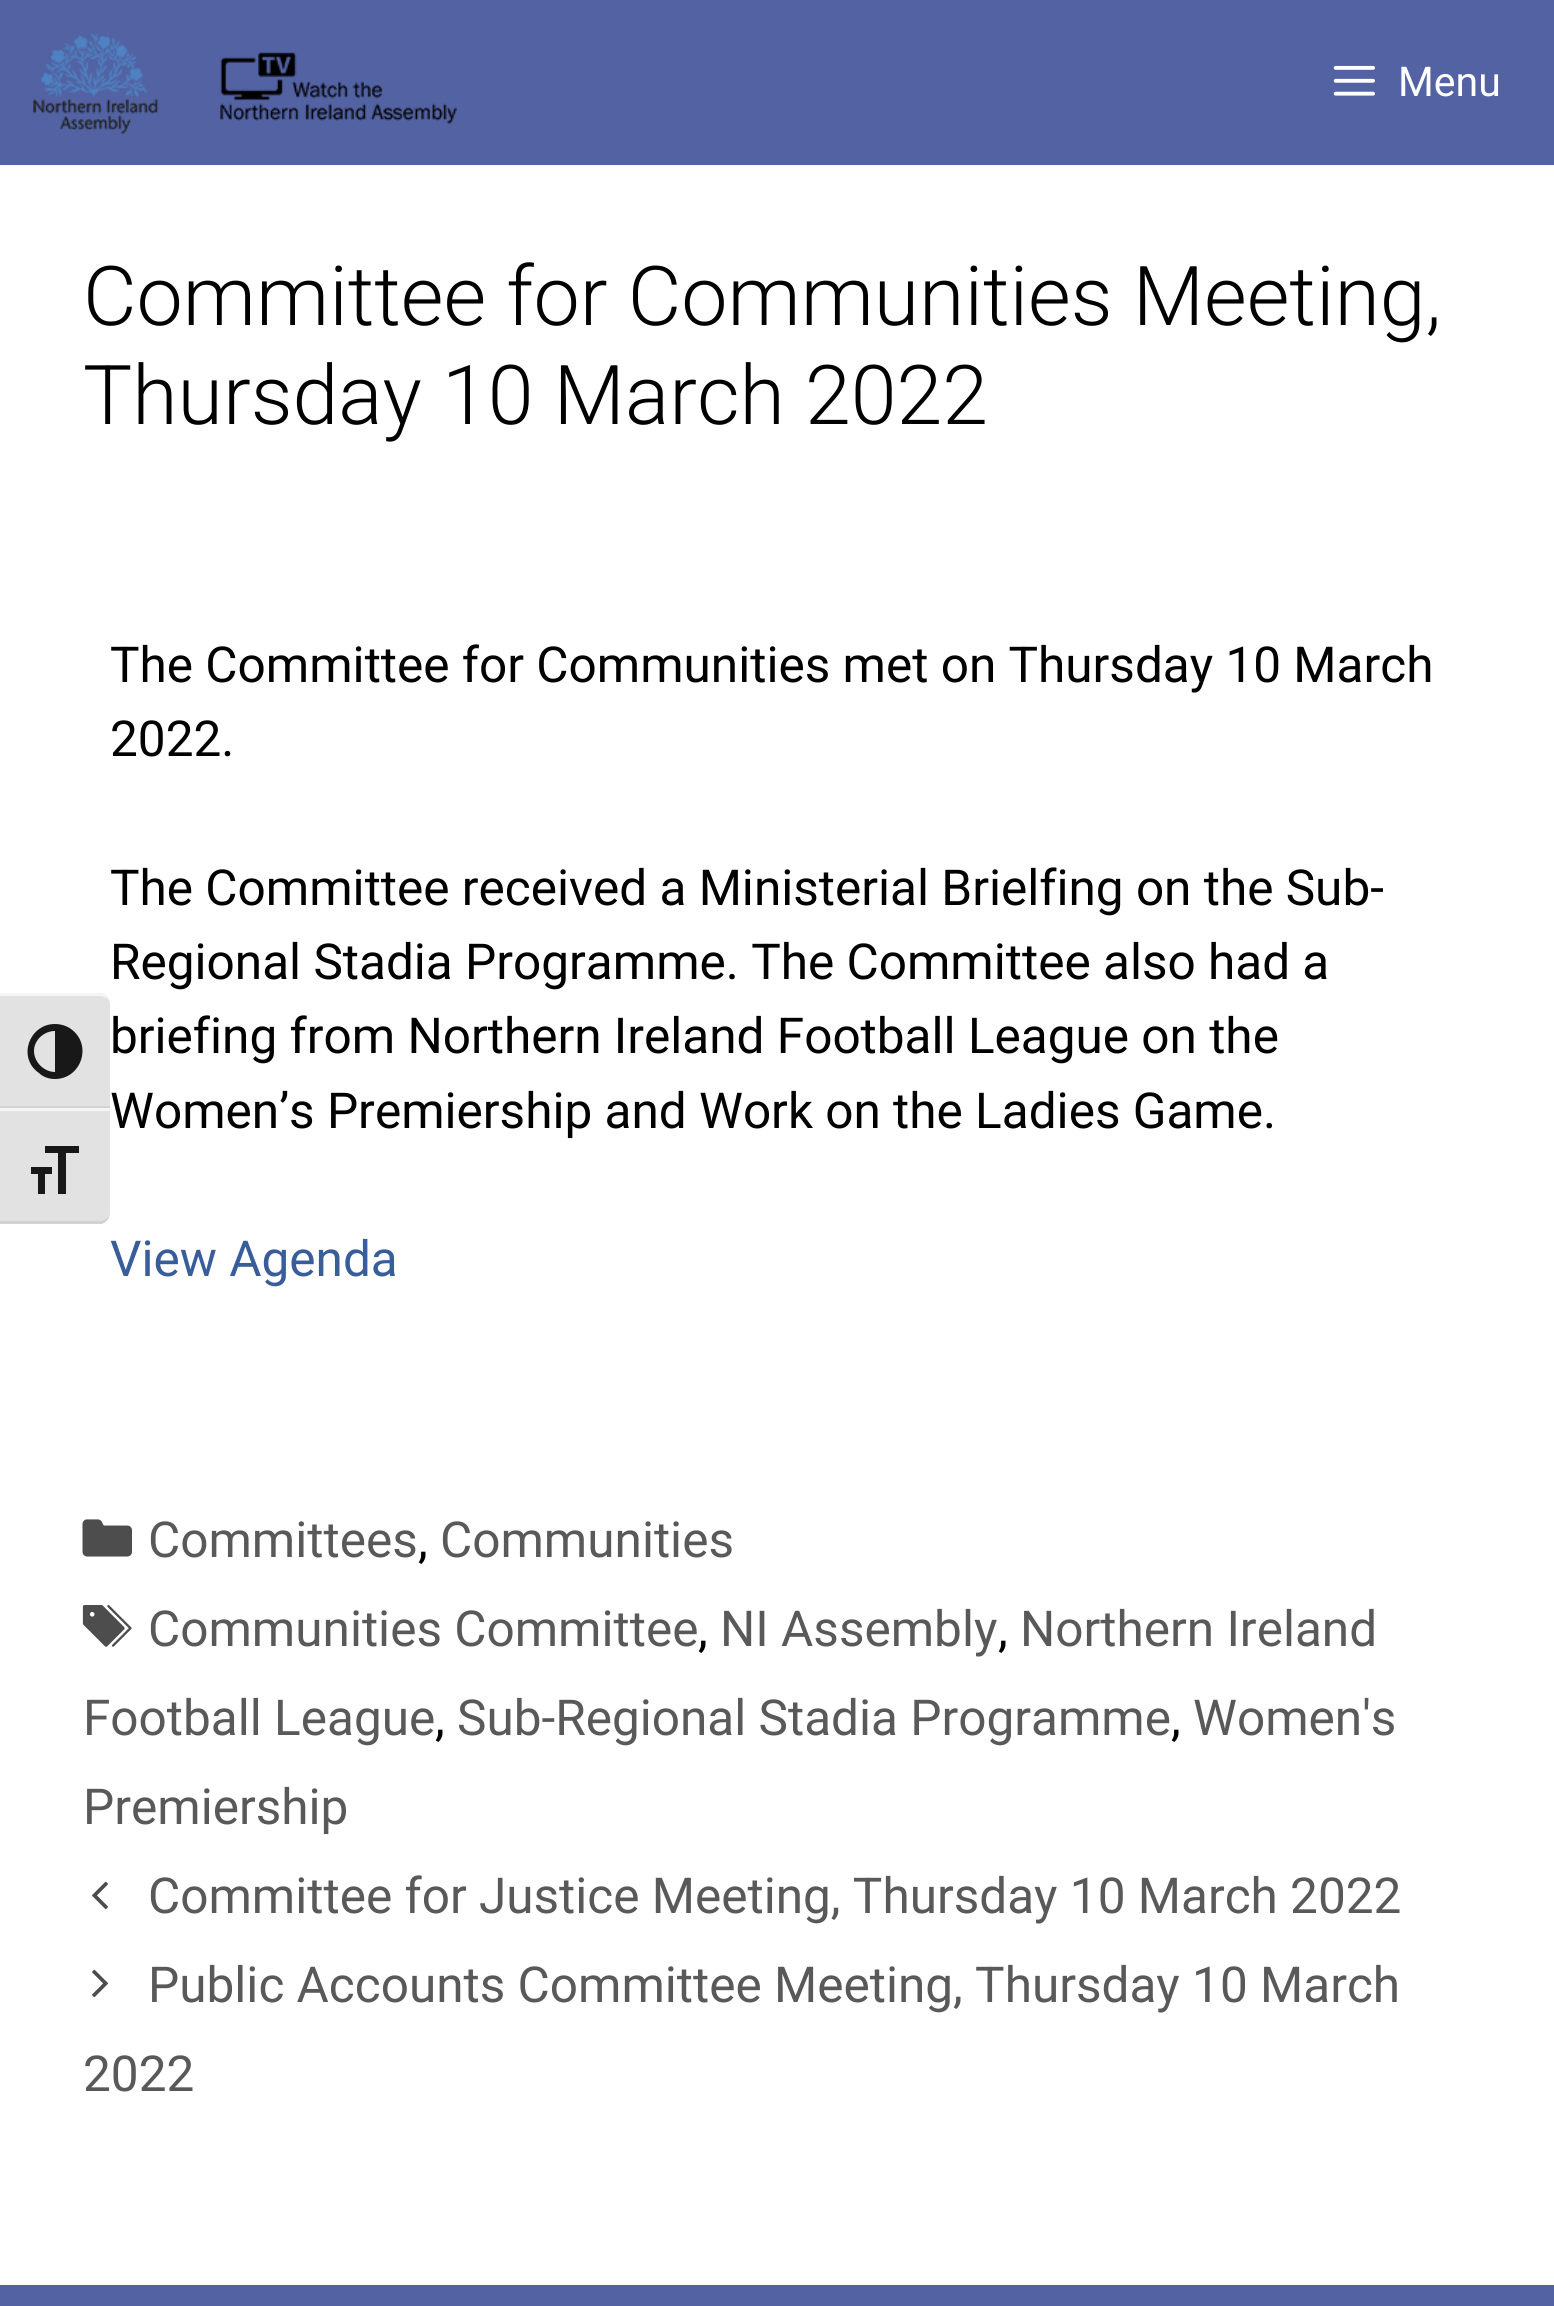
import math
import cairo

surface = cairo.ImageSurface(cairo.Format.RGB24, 1554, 2306)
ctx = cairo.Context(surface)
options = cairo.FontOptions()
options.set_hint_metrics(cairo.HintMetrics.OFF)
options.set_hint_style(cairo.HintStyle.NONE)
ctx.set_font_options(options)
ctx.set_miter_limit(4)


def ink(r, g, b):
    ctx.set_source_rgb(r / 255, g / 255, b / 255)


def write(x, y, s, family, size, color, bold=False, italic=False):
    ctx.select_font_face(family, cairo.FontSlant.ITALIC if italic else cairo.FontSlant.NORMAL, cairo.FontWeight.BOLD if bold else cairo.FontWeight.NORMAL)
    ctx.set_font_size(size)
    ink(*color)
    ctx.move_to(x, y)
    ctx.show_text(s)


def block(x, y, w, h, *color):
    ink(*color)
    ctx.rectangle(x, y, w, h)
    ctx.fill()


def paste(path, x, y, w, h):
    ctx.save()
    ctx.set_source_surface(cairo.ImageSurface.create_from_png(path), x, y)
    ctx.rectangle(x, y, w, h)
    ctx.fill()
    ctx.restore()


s1 = dict(family="Roboto", size=41, color=(255, 255, 255))
s2 = dict(family="Roboto Light", size=82.5, color=(0, 0, 0))
s3 = dict(family="Roboto", size=49.5, color=(0, 0, 0))
s4 = dict(family="Roboto", size=49.5, color=(57, 93, 155))
s5 = dict(family="Roboto", size=49.5, color=(89, 89, 89))

ink(255, 255, 255)
ctx.paint()
block(0, 0, 1554, 165, 82, 98, 162)
paste("pic1.png", 33, 33, 424, 101)
paste("pic2.png", 1333, 65, 42, 31)
write(1398, 96, "Menu", **s1)
ink(226, 226, 226)
ctx.new_path()
ctx.move_to(0, 993)
ctx.line_to(99, 993)
ctx.curve_to(105, 993, 110, 998, 110, 1004)
ctx.line_to(110, 1108)
ctx.line_to(0, 1108)
ctx.close_path()
ctx.fill()
ink(245, 245, 245)
ctx.new_path()
ctx.move_to(0, 996)
ctx.line_to(99, 996)
ctx.curve_to(105, 996, 110, 999, 110, 1004)
ctx.curve_to(110, 998, 105, 993, 99, 993)
ctx.line_to(0, 993)
ctx.close_path()
ctx.fill()
block(0, 1106, 110, 2, 210, 210, 210)
ink(24, 24, 24)
ctx.new_path()
ctx.move_to(55, 1024)
ctx.curve_to(29, 1024, 17, 1058, 39, 1073)
ctx.curve_to(43, 1077, 49, 1079, 55, 1079)
ctx.curve_to(81, 1079, 93, 1045, 71, 1029)
ctx.curve_to(67, 1026, 61, 1024, 55, 1024)
ctx.close_path()
ctx.move_to(34, 1051)
ctx.curve_to(34, 1040, 44, 1031, 55, 1031)
ctx.line_to(55, 1072)
ctx.curve_to(44, 1072, 34, 1062, 34, 1051)
ctx.close_path()
ctx.fill()
ink(226, 226, 226)
ctx.new_path()
ctx.move_to(0, 1108)
ctx.line_to(110, 1108)
ctx.line_to(110, 1213)
ctx.curve_to(110, 1219, 105, 1224, 99, 1224)
ctx.line_to(0, 1224)
ctx.close_path()
ctx.fill()
block(0, 1108, 110, 3, 245, 245, 245)
ink(210, 210, 210)
ctx.new_path()
ctx.move_to(101, 1224)
ctx.curve_to(106, 1223, 110, 1218, 110, 1213)
ctx.curve_to(110, 1217, 105, 1221, 99, 1221)
ctx.line_to(0, 1221)
ctx.line_to(0, 1224)
ctx.close_path()
ctx.fill()
ink(24, 24, 24)
ctx.new_path()
ctx.move_to(31, 1167)
ctx.line_to(52, 1167)
ctx.line_to(52, 1174)
ctx.line_to(45, 1174)
ctx.line_to(45, 1194)
ctx.line_to(38, 1194)
ctx.line_to(38, 1174)
ctx.line_to(31, 1174)
ctx.close_path()
ctx.move_to(79, 1153)
ctx.line_to(66, 1153)
ctx.line_to(66, 1194)
ctx.line_to(58, 1194)
ctx.line_to(58, 1153)
ctx.line_to(45, 1153)
ctx.line_to(45, 1146)
ctx.line_to(79, 1146)
ctx.close_path()
ctx.fill()
write(83, 325, "Committee for Communities Meeting,", **s2)
write(83, 424, "Thursday 10 March 2022", **s2)
write(110, 682, "The Committee for Communities met on Thursday 10 March", **s3)
write(110, 756, "2022.", **s3)
write(110, 905, "The Committee received a Ministerial Brielfing on the Sub-", **s3)
write(110, 979, "Regional Stadia Programme. The Committee also had a", **s3)
write(110, 1053, "briefing from Northern Ireland Football League on the", **s3)
write(110, 1128, "Women’s Premiership and Work on the Ladies Game.", **s3)
write(110, 1276, "View Agenda", **s4)
paste("pic3.png", 82, 1519, 50, 38)
write(148, 1557, "Committees", **s5)
write(418, 1557, ",", **s3)
write(440, 1557, "Communities", **s5)
paste("pic4.png", 82, 1605, 50, 42)
write(148, 1646, "Communities Committee", **s5)
write(698, 1646, ",", **s3)
write(720, 1646, "NI Assembly", **s5)
write(998, 1646, ",", **s3)
write(1020, 1646, "Northern Ireland", **s5)
write(83, 1735, "Football League", **s5)
write(435, 1735, ",", **s3)
write(457, 1735, "Sub-Regional Stadia Programme", **s5)
write(1171, 1735, ",", **s3)
write(1193, 1735, "Women's", **s5)
write(83, 1824, "Premiership", **s5)
paste("pic5.png", 92, 1881, 16, 29)
write(148, 1913, "Committee for Justice Meeting, Thursday 10 March 2022", **s5)
paste("pic6.png", 92, 1969, 16, 29)
write(148, 2002, "Public Accounts Committee Meeting, Thursday 10 March", **s5)
write(83, 2091, "2022", **s5)
block(0, 2285, 1554, 21, 82, 98, 162)
surface.write_to_png("screenshot.png")
